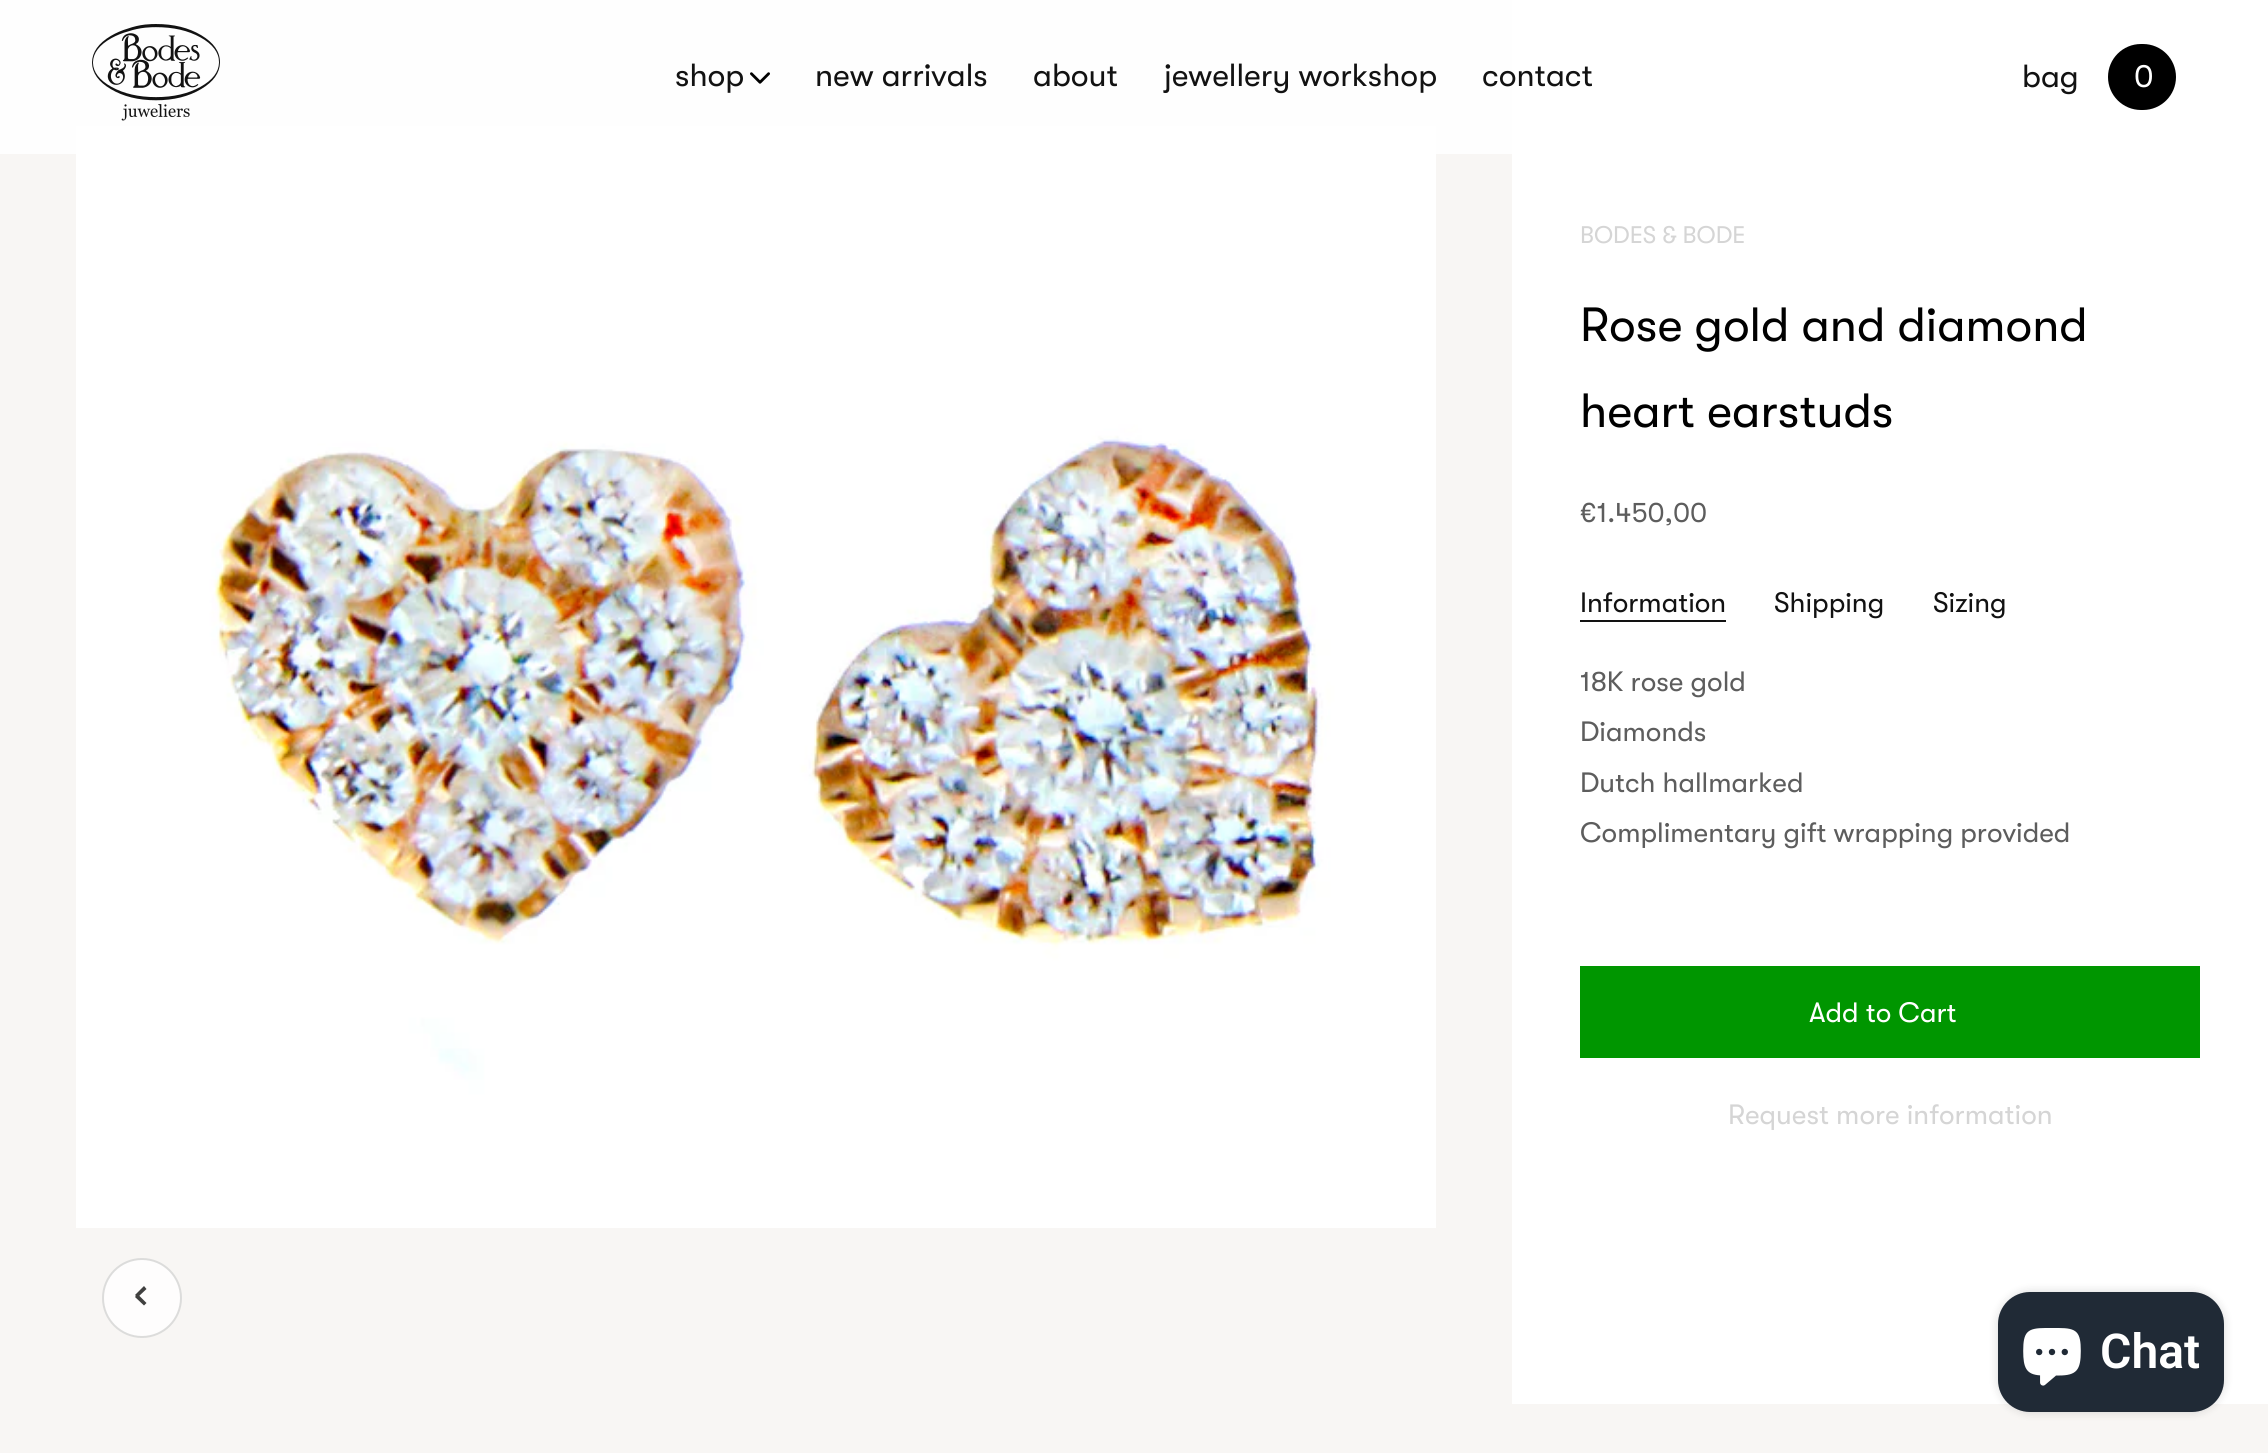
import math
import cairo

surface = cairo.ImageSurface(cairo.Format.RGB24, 2268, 1453)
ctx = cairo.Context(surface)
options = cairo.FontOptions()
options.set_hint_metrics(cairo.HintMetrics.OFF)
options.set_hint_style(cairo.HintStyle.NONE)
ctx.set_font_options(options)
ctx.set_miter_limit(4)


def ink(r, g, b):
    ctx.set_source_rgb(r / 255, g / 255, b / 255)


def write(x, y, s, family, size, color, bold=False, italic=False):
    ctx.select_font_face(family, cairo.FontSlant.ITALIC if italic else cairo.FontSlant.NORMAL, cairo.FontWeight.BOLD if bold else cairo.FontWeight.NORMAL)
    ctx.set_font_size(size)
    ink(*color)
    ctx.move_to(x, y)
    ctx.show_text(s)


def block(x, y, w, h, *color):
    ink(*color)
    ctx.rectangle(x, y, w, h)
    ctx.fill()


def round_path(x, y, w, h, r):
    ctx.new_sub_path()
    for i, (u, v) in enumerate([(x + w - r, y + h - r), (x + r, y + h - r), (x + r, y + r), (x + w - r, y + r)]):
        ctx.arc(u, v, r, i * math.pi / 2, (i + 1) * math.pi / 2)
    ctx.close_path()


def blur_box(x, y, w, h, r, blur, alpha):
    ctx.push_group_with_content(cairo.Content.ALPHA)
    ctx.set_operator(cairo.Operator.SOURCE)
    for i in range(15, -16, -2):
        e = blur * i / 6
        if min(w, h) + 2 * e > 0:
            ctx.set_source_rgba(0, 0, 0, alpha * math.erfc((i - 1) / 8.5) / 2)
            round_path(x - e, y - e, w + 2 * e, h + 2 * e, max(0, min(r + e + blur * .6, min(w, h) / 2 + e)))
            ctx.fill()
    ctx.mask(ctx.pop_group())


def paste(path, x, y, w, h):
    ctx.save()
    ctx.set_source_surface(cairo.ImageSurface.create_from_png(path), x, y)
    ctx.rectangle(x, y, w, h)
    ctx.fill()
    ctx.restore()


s1 = dict(family="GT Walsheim", size=32, color=(18, 18, 18))
s2 = dict(family="GT Walsheim", size=32, color=(255, 255, 255))
s3 = dict(family="GT Walsheim", size=24, color=(213, 213, 213))
s4 = dict(family="GT Walsheim", size=48, color=(0, 0, 0))
s5 = dict(family="GT Walsheim", size=28, color=(93, 93, 93))
s6 = dict(family="GT Walsheim", size=28, color=(18, 18, 18))
s7 = dict(family="GT Walsheim", size=28, color=(255, 255, 255))
s8 = dict(family="GT Walsheim", size=28, color=(213, 213, 213))
s9 = dict(family="Roboto SemiBold", size=48, color=(255, 255, 255))

ink(255, 255, 255)
ctx.paint()
block(0, 0, 1512, 1404, 248, 246, 244)
paste("pic3.png", 76, 126, 1360, 1102)
ctx.set_source_rgba(1, 1, 1, 0.9)
ctx.rectangle(0, 0, 1512, 154)
ctx.fill()
paste("pic1.png", 92, 24, 128, 97)
write(675, 86, "shop", **s1)
paste("pic2.png", 750, 72, 20, 12)
write(815, 86, "new arrivals", **s1)
write(1033, 86, "about", **s1)
write(1164, 86, "jewellery workshop", **s1)
write(1482, 86, "contact", **s1)
write(2022, 87, "bag", **s1)
ink(0, 0, 0)
round_path(2108, 44, 68, 66, 33)
ctx.fill()
write(2134, 87, "0", **s2)
write(1580, 243, "BODES & BODE", **s3)
write(1580, 341, "Rose gold and diamond", **s4)
write(1580, 427, "heart earstuds", **s4)
write(1580, 522, "€1.450,00", **s5)
write(1580, 612, "Information", **s6)
block(1580, 620, 146, 2, 18, 18, 18)
write(1774, 612, "Shipping", **s6)
write(1933, 612, "Sizing", **s6)
write(1580, 691, "18K rose gold", **s5)
write(1580, 741, "Diamonds", **s5)
write(1580, 792, "Dutch hallmarked", **s5)
write(1580, 842, "Complimentary gift wrapping provided", **s5)
block(1580, 966, 620, 92, 0, 150, 0)
write(1809, 1022, "Add to Cart", **s7)
write(1728, 1124, "Request more information", **s8)
ink(254, 253, 253)
ctx.new_path()
ctx.arc(142, 1298, 39, 0, 2 * math.pi)
ctx.fill_preserve()
ink(220, 220, 219)
ctx.stroke()
ink(64, 64, 63)
ctx.new_path()
ctx.move_to(137.5, 1294)
ctx.line_to(146.5, 1303)
ctx.line_to(144, 1305.5)
ctx.line_to(135, 1297)
ctx.close_path()
ctx.fill()
ctx.new_path()
ctx.move_to(135, 1295)
ctx.line_to(144, 1286)
ctx.line_to(146.5, 1289)
ctx.line_to(137.5, 1297.5)
ctx.close_path()
ctx.fill()
block(0, 1404, 2268, 49, 248, 246, 244)
ink(0, 0, 0)
blur_box(1998, 1292, 226, 120, 32, 5, 0.15)
ink(32, 42, 54)
round_path(1998, 1292, 226, 120, 32)
ctx.fill()
paste("pic4.png", 2023, 1328, 58, 58)
write(2100, 1368, "Chat", **s9)
surface.write_to_png("screenshot.png")
